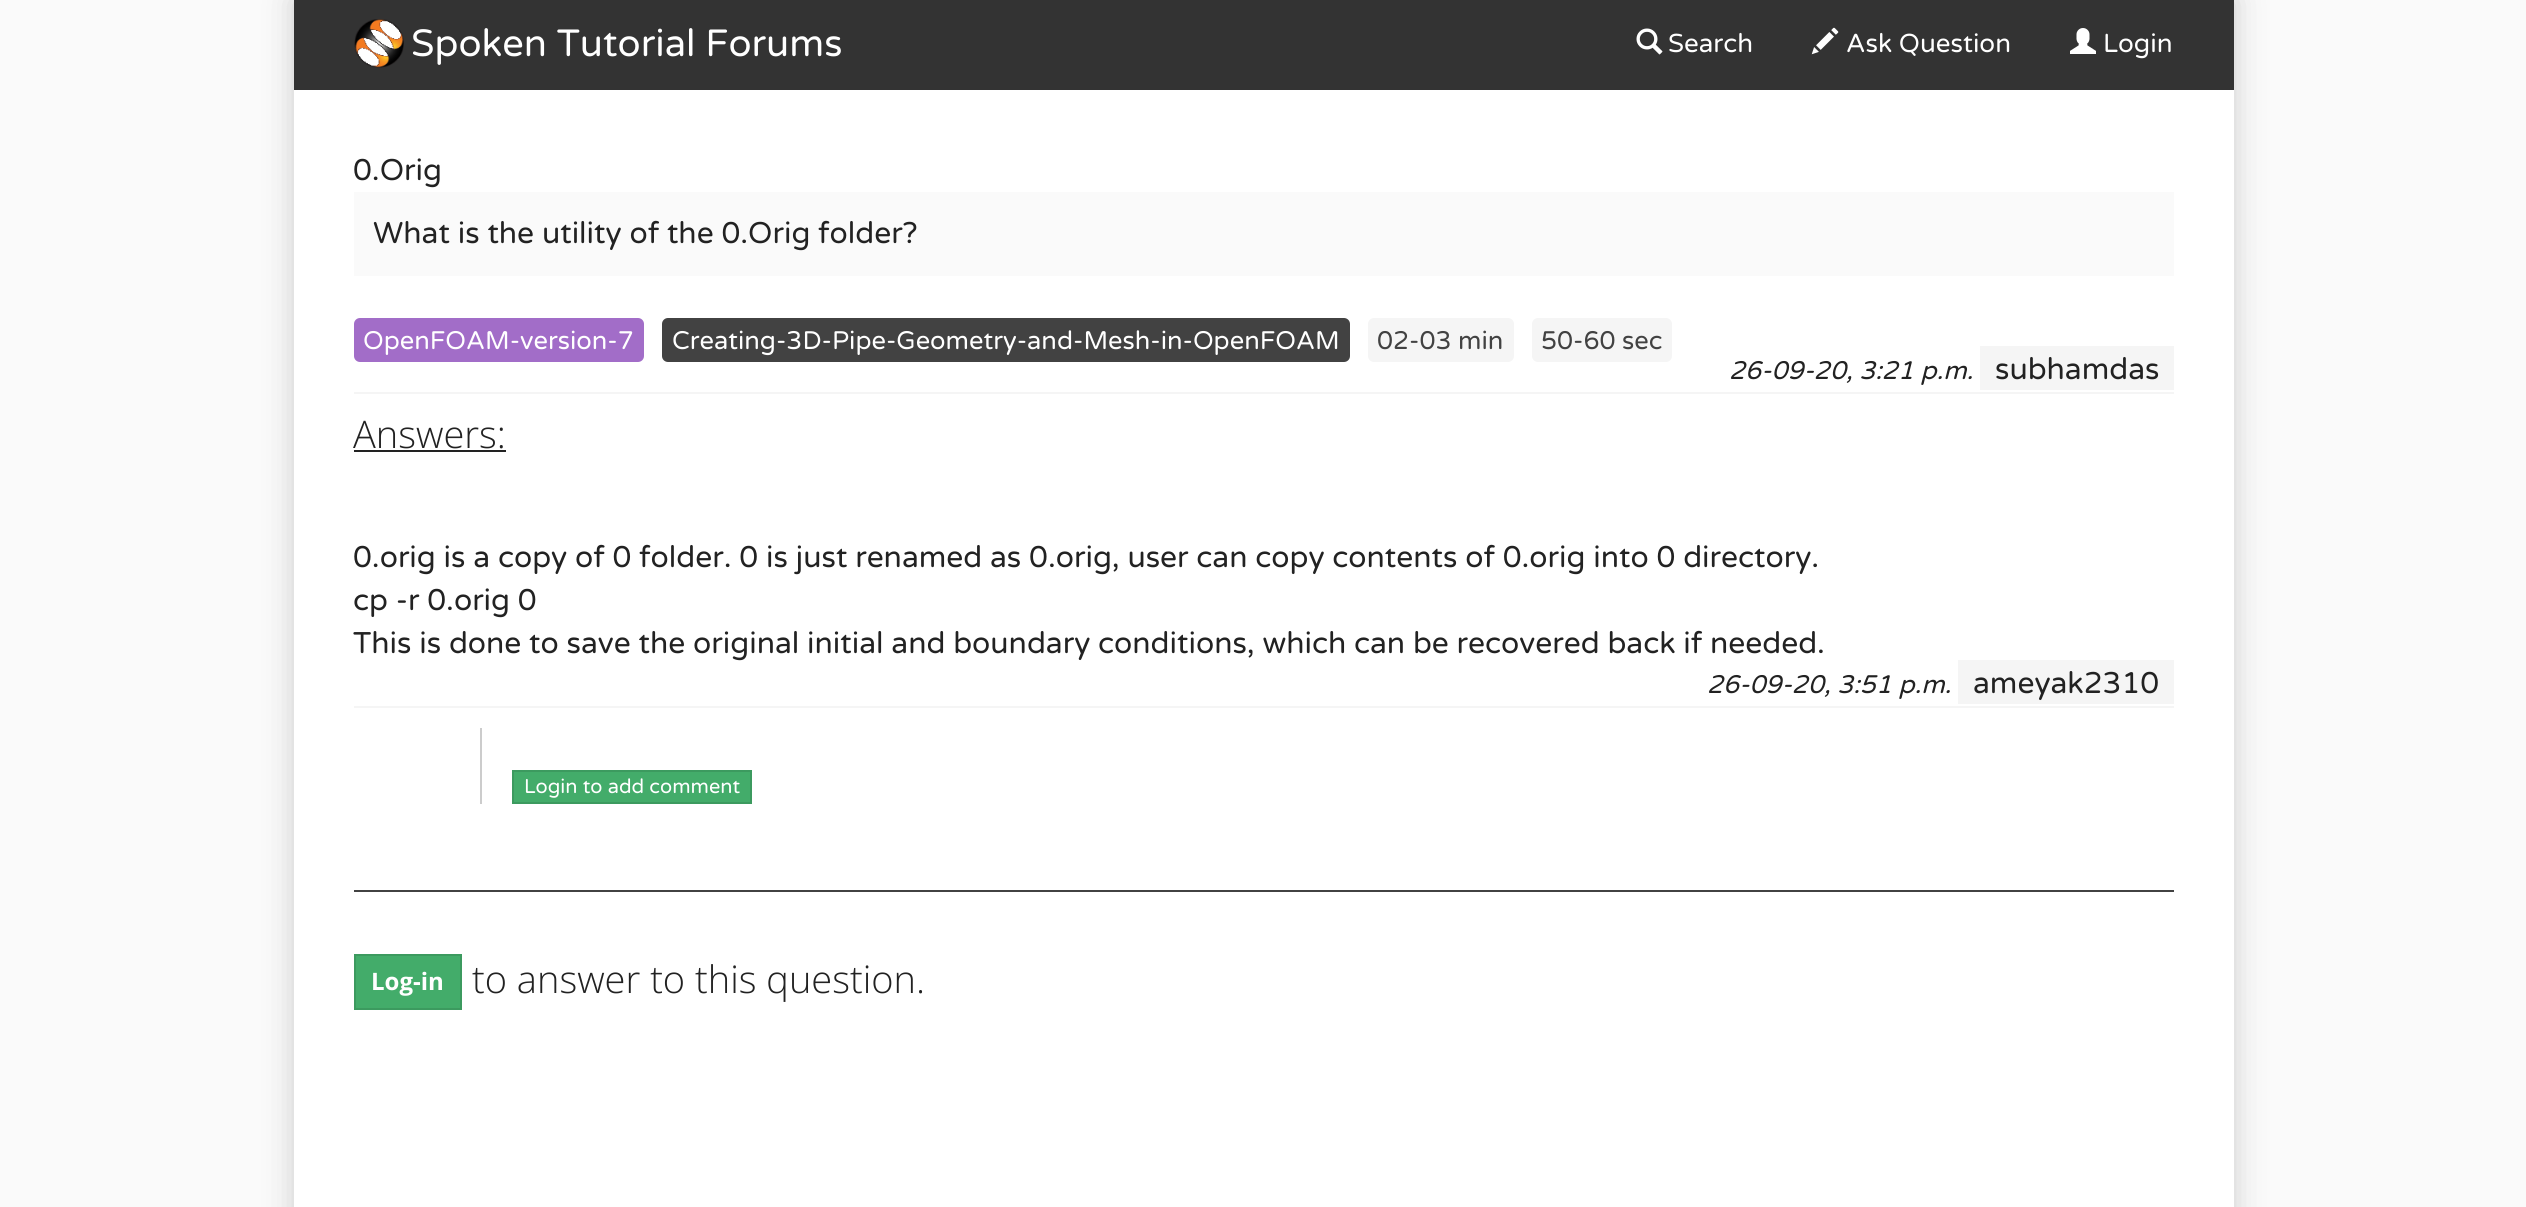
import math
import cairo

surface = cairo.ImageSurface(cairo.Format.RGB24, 2526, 1207)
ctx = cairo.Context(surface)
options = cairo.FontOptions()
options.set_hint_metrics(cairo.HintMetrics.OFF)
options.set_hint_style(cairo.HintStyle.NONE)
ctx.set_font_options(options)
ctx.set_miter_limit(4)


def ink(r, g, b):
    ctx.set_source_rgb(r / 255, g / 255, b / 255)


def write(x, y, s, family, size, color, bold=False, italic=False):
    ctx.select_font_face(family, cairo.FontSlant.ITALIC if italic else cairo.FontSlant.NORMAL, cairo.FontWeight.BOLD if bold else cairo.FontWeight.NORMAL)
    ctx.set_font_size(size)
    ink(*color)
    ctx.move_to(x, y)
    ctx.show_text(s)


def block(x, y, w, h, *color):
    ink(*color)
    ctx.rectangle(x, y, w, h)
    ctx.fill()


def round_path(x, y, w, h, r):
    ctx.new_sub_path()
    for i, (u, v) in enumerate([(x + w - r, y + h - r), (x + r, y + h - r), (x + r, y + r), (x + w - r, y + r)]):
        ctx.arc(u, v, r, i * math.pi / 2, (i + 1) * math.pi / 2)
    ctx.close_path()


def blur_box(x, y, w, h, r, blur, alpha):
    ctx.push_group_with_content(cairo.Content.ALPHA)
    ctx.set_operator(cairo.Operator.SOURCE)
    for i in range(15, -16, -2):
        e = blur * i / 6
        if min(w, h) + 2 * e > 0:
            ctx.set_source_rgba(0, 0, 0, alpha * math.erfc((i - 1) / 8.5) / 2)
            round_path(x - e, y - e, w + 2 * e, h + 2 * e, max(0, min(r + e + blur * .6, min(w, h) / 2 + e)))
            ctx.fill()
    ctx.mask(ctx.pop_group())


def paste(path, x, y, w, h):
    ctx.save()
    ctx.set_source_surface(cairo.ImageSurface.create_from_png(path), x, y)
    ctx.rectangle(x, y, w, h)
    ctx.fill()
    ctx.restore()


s1 = dict(family="Varela Round", size=38, color=(255, 255, 255))
s2 = dict(family="Varela Round", size=26, color=(255, 255, 255))
s3 = dict(family="Varela Round", size=30, color=(34, 34, 34))
s4 = dict(family="Varela Round", size=25.5, color=(255, 255, 255))
s5 = dict(family="Varela Round", size=25.5, color=(66, 66, 66))
s6 = dict(family="Varela Round", size=25.5, color=(34, 34, 34), italic=True)
s7 = dict(family="Open Sans Light", size=38, color=(34, 34, 34))
s8 = dict(family="Varela Round", size=20, color=(255, 255, 255))
s9 = dict(family="Open Sans", size=24, color=(255, 255, 255), bold=True)

ink(250, 250, 250)
ctx.paint()
ink(204, 204, 204)
blur_box(294, 0, 1940, 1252, 0, 15, 1)
block(294, 0, 1940, 90, 51, 51, 51)
paste("pic1.png", 354, 19, 50, 49)
write(411, 56, "Spoken Tutorial Forums", **s1)
paste("pic2.png", 1636, 28, 27, 27)
write(1668, 52, "Search", **s2)
paste("pic3.png", 1811, 27, 28, 28)
write(1846, 52, "Ask Question", **s2)
paste("pic4.png", 2070, 28, 26, 26)
write(2103, 52, "Login", **s2)
block(294, 90, 1940, 1117, 255, 255, 255)
block(354, 392, 1820, 2, 245, 245, 245)
write(353, 180, "0.Orig", **s3)
block(354, 192, 1820, 84, 250, 250, 250)
write(373, 243, "What is the utility of the 0.Orig folder?", **s3)
ink(162, 109, 200)
round_path(354, 318, 290, 44, 6)
ctx.fill()
write(363, 349, "OpenFOAM-version-7", **s4)
ink(66, 66, 66)
round_path(662, 318, 688, 44, 6)
ctx.fill()
write(672, 349, "Creating-3D-Pipe-Geometry-and-Mesh-in-OpenFOAM", **s4)
ink(245, 245, 245)
round_path(1368, 318, 146, 44, 6)
ctx.fill()
write(1377, 349, "02-03 min", **s5)
ink(245, 245, 245)
round_path(1532, 318, 140, 44, 6)
ctx.fill()
write(1541, 349, "50-60 sec", **s5)
write(1729, 379, "26-09-20, 3:21 p.m.", **s6)
block(1980, 346, 194, 44, 245, 245, 245)
write(1995, 379, "subhamdas", **s3)
write(353, 448, "Answers:", **s7)
block(354, 450, 152, 2, 34, 34, 34)
block(354, 706, 1820, 2, 245, 245, 245)
write(353, 567, "0.orig is a copy of 0 folder. 0 is just renamed as 0.orig, user can copy contents of 0.orig into 0 directory.", **s3)
write(353, 610, "cp -r 0.orig 0", **s3)
write(353, 653, "This is done to save the original initial and boundary conditions, which can be recovered back if needed.", **s3)
write(1707, 693, "26-09-20, 3:51 p.m.", **s6)
block(1958, 660, 216, 44, 245, 245, 245)
write(1973, 693, "ameyak2310", **s3)
block(480, 728, 2, 76, 204, 204, 204)
ink(67, 172, 106)
ctx.rectangle(513, 771, 238, 32)
ctx.fill_preserve()
ink(60, 154, 95)
ctx.stroke()
write(524, 793, "Login to add comment", **s8)
block(354, 890, 1820, 2, 66, 66, 66)
ink(67, 172, 106)
ctx.rectangle(355, 955, 106, 54)
ctx.fill_preserve()
ink(60, 154, 95)
ctx.stroke()
write(371, 990, "Log-in", **s9)
write(472, 993, "to answer to this question.", **s7)
surface.write_to_png("screenshot.png")
